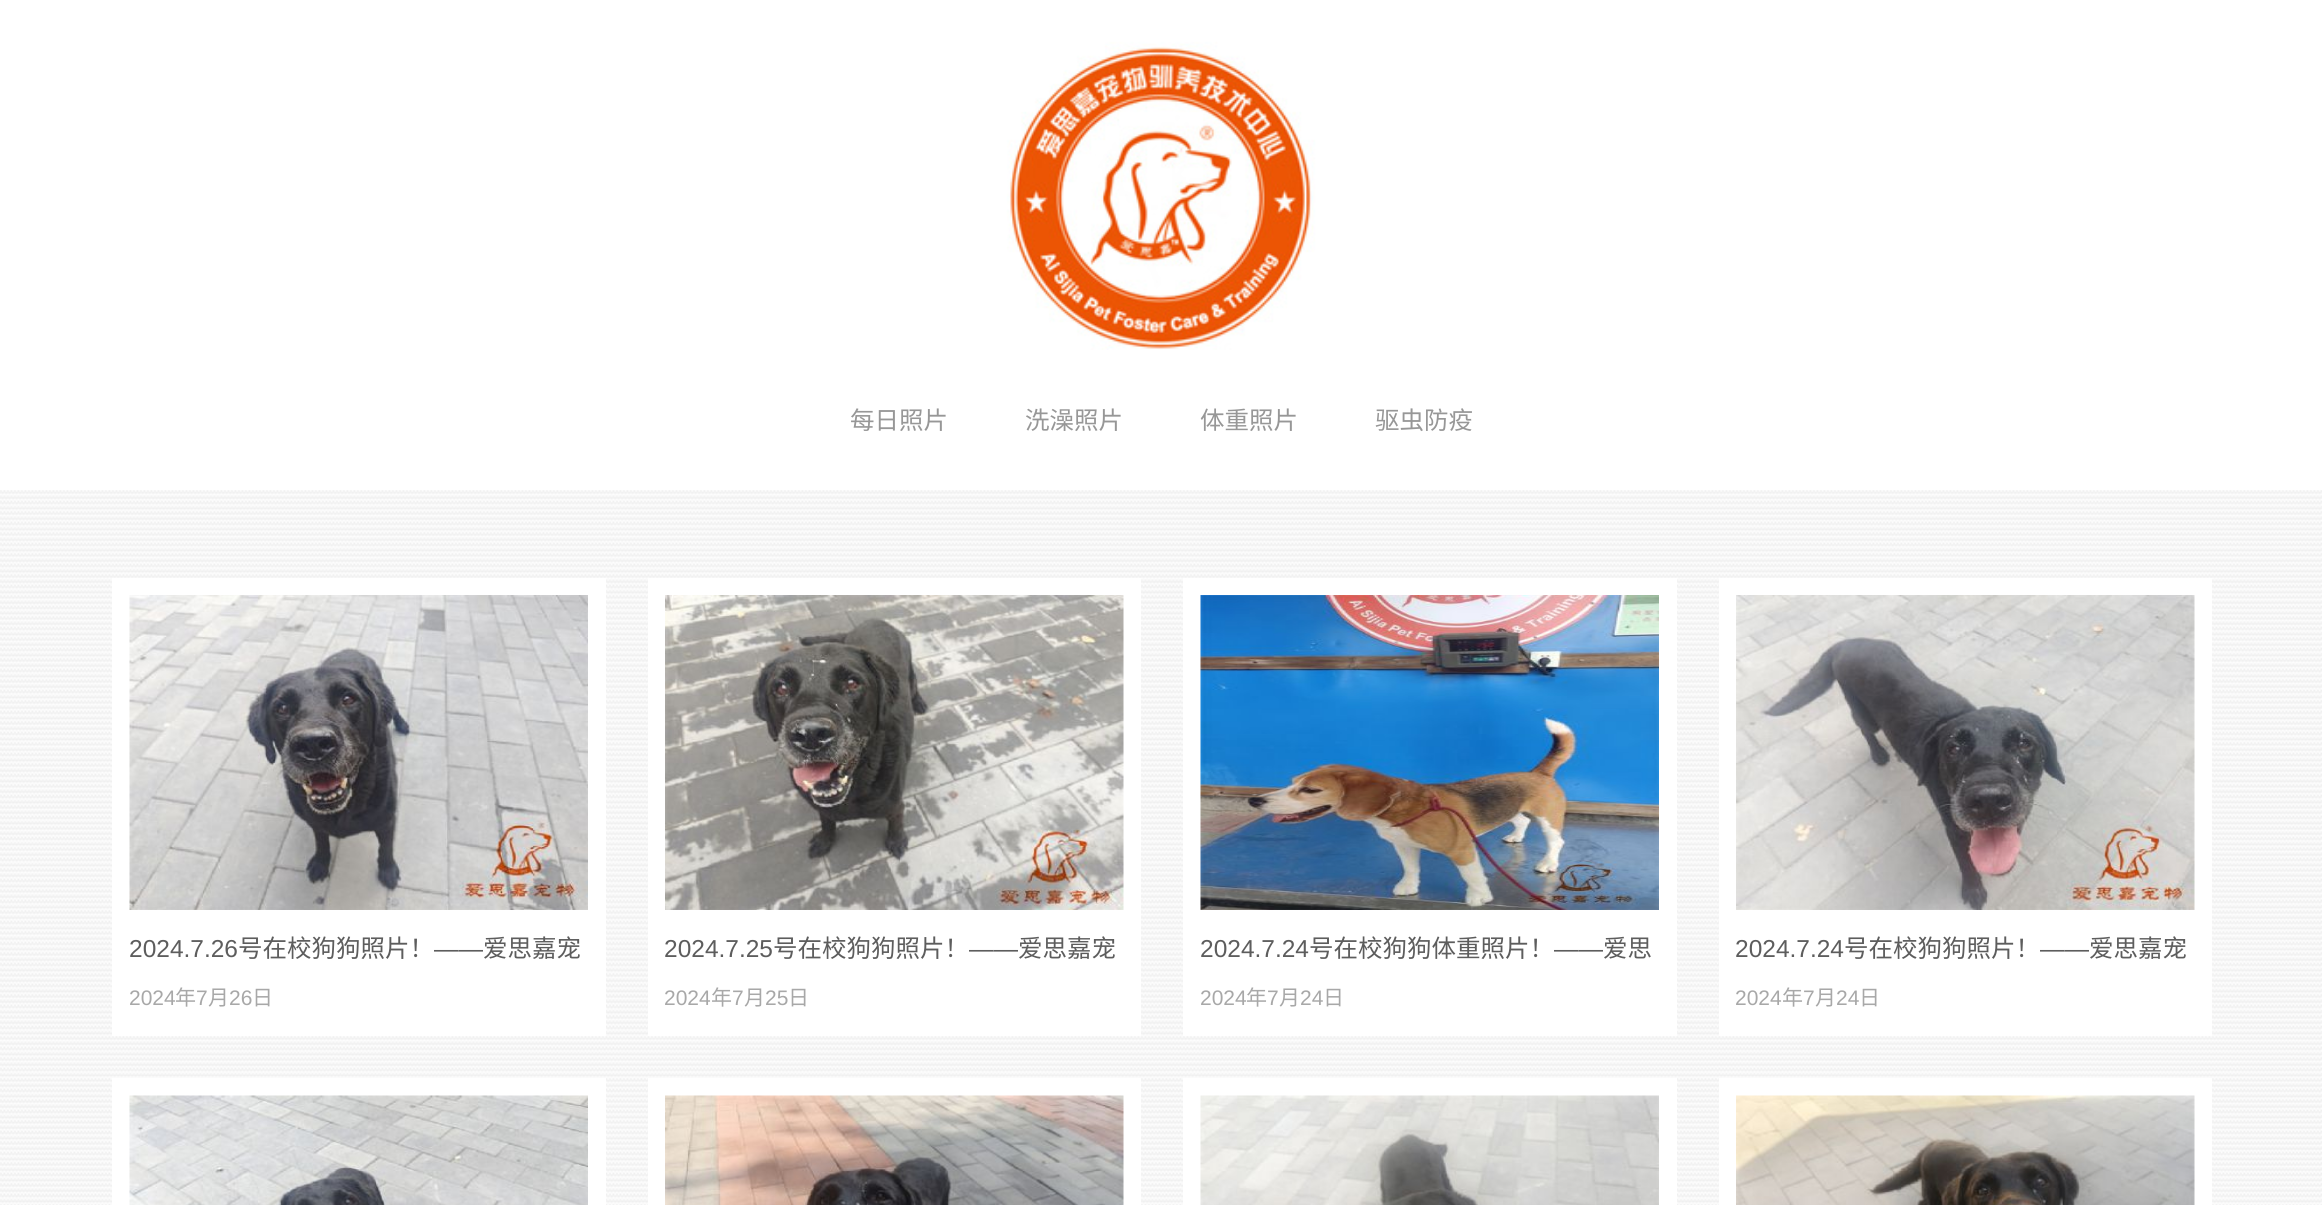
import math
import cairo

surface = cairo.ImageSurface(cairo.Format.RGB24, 2322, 1205)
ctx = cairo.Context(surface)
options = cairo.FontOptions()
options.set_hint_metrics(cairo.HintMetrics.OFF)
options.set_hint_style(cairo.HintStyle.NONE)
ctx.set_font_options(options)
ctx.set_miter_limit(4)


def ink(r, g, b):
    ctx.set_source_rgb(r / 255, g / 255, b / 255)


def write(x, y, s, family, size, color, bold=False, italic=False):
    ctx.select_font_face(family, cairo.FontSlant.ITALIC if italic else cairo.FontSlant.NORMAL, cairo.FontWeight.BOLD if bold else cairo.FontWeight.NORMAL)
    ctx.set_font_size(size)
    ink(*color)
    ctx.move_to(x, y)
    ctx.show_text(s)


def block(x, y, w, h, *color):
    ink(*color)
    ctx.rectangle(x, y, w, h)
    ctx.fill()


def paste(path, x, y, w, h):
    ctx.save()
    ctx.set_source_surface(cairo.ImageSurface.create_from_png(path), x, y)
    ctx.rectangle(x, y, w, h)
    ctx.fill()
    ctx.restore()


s1 = dict(family="Noto Sans CJK SC", size=24.5, color=(151, 151, 151))
s2 = dict(family="Liberation Sans", size=24.5, color=(93, 93, 93))
s3 = dict(family="Noto Sans CJK SC", size=24.5, color=(93, 93, 93))
s4 = dict(family="Liberation Sans", size=21, color=(168, 168, 168))
s5 = dict(family="Noto Sans CJK SC", size=21, color=(168, 168, 168))

ink(255, 255, 255)
ctx.paint()
paste("pic1.png", 0, 490, 2322, 715)
paste("pic2.png", 0, 0, 2322, 350)
write(850, 429, "每日照片", **s1)
write(1025, 429, "洗澡照片", **s1)
write(1200, 429, "体重照片", **s1)
write(1375, 429, "驱虫防疫", **s1)
block(112, 578, 494, 458, 255, 255, 255)
paste("pic3.png", 129, 595, 459, 315)
write(129, 957, "2024.7.26", **s2)
write(238, 957, "号在校狗狗照片！", **s3)
write(434, 957, "——", **s2)
write(483, 957, "爱思嘉宠", **s3)
write(129, 1005, "2024", **s4)
write(175, 1005, "年", **s5)
write(196, 1005, "7", **s4)
write(208, 1005, "月", **s5)
write(229, 1005, "26", **s4)
write(252, 1005, "日", **s5)
block(648, 578, 493, 458, 255, 255, 255)
paste("pic4.png", 665, 595, 459, 315)
write(664, 957, "2024.7.25", **s2)
write(773, 957, "号在校狗狗照片！", **s3)
write(969, 957, "——", **s2)
write(1018, 957, "爱思嘉宠", **s3)
write(664, 1005, "2024", **s4)
write(711, 1005, "年", **s5)
write(732, 1005, "7", **s4)
write(744, 1005, "月", **s5)
write(765, 1005, "25", **s4)
write(788, 1005, "日", **s5)
block(1183, 578, 494, 458, 255, 255, 255)
paste("pic5.png", 1200, 595, 459, 315)
write(1200, 957, "2024.7.24", **s2)
write(1309, 957, "号在校狗狗体重照片！", **s3)
write(1554, 957, "——", **s2)
write(1603, 957, "爱思", **s3)
write(1200, 1005, "2024", **s4)
write(1246, 1005, "年", **s5)
write(1267, 1005, "7", **s4)
write(1279, 1005, "月", **s5)
write(1300, 1005, "24", **s4)
write(1323, 1005, "日", **s5)
block(1719, 578, 493, 458, 255, 255, 255)
paste("pic6.png", 1736, 595, 459, 315)
write(1735, 957, "2024.7.24", **s2)
write(1844, 957, "号在校狗狗照片！", **s3)
write(2040, 957, "——", **s2)
write(2089, 957, "爱思嘉宠", **s3)
write(1735, 1005, "2024", **s4)
write(1782, 1005, "年", **s5)
write(1803, 1005, "7", **s4)
write(1815, 1005, "月", **s5)
write(1836, 1005, "24", **s4)
write(1859, 1005, "日", **s5)
block(112, 1078, 494, 127, 255, 255, 255)
paste("pic7.png", 129, 1095, 459, 110)
block(648, 1078, 493, 127, 255, 255, 255)
paste("pic8.png", 665, 1095, 459, 110)
block(1183, 1078, 494, 127, 255, 255, 255)
paste("pic9.png", 1200, 1095, 459, 110)
block(1719, 1078, 493, 127, 255, 255, 255)
paste("pic10.png", 1736, 1095, 459, 110)
surface.write_to_png("screenshot.png")
